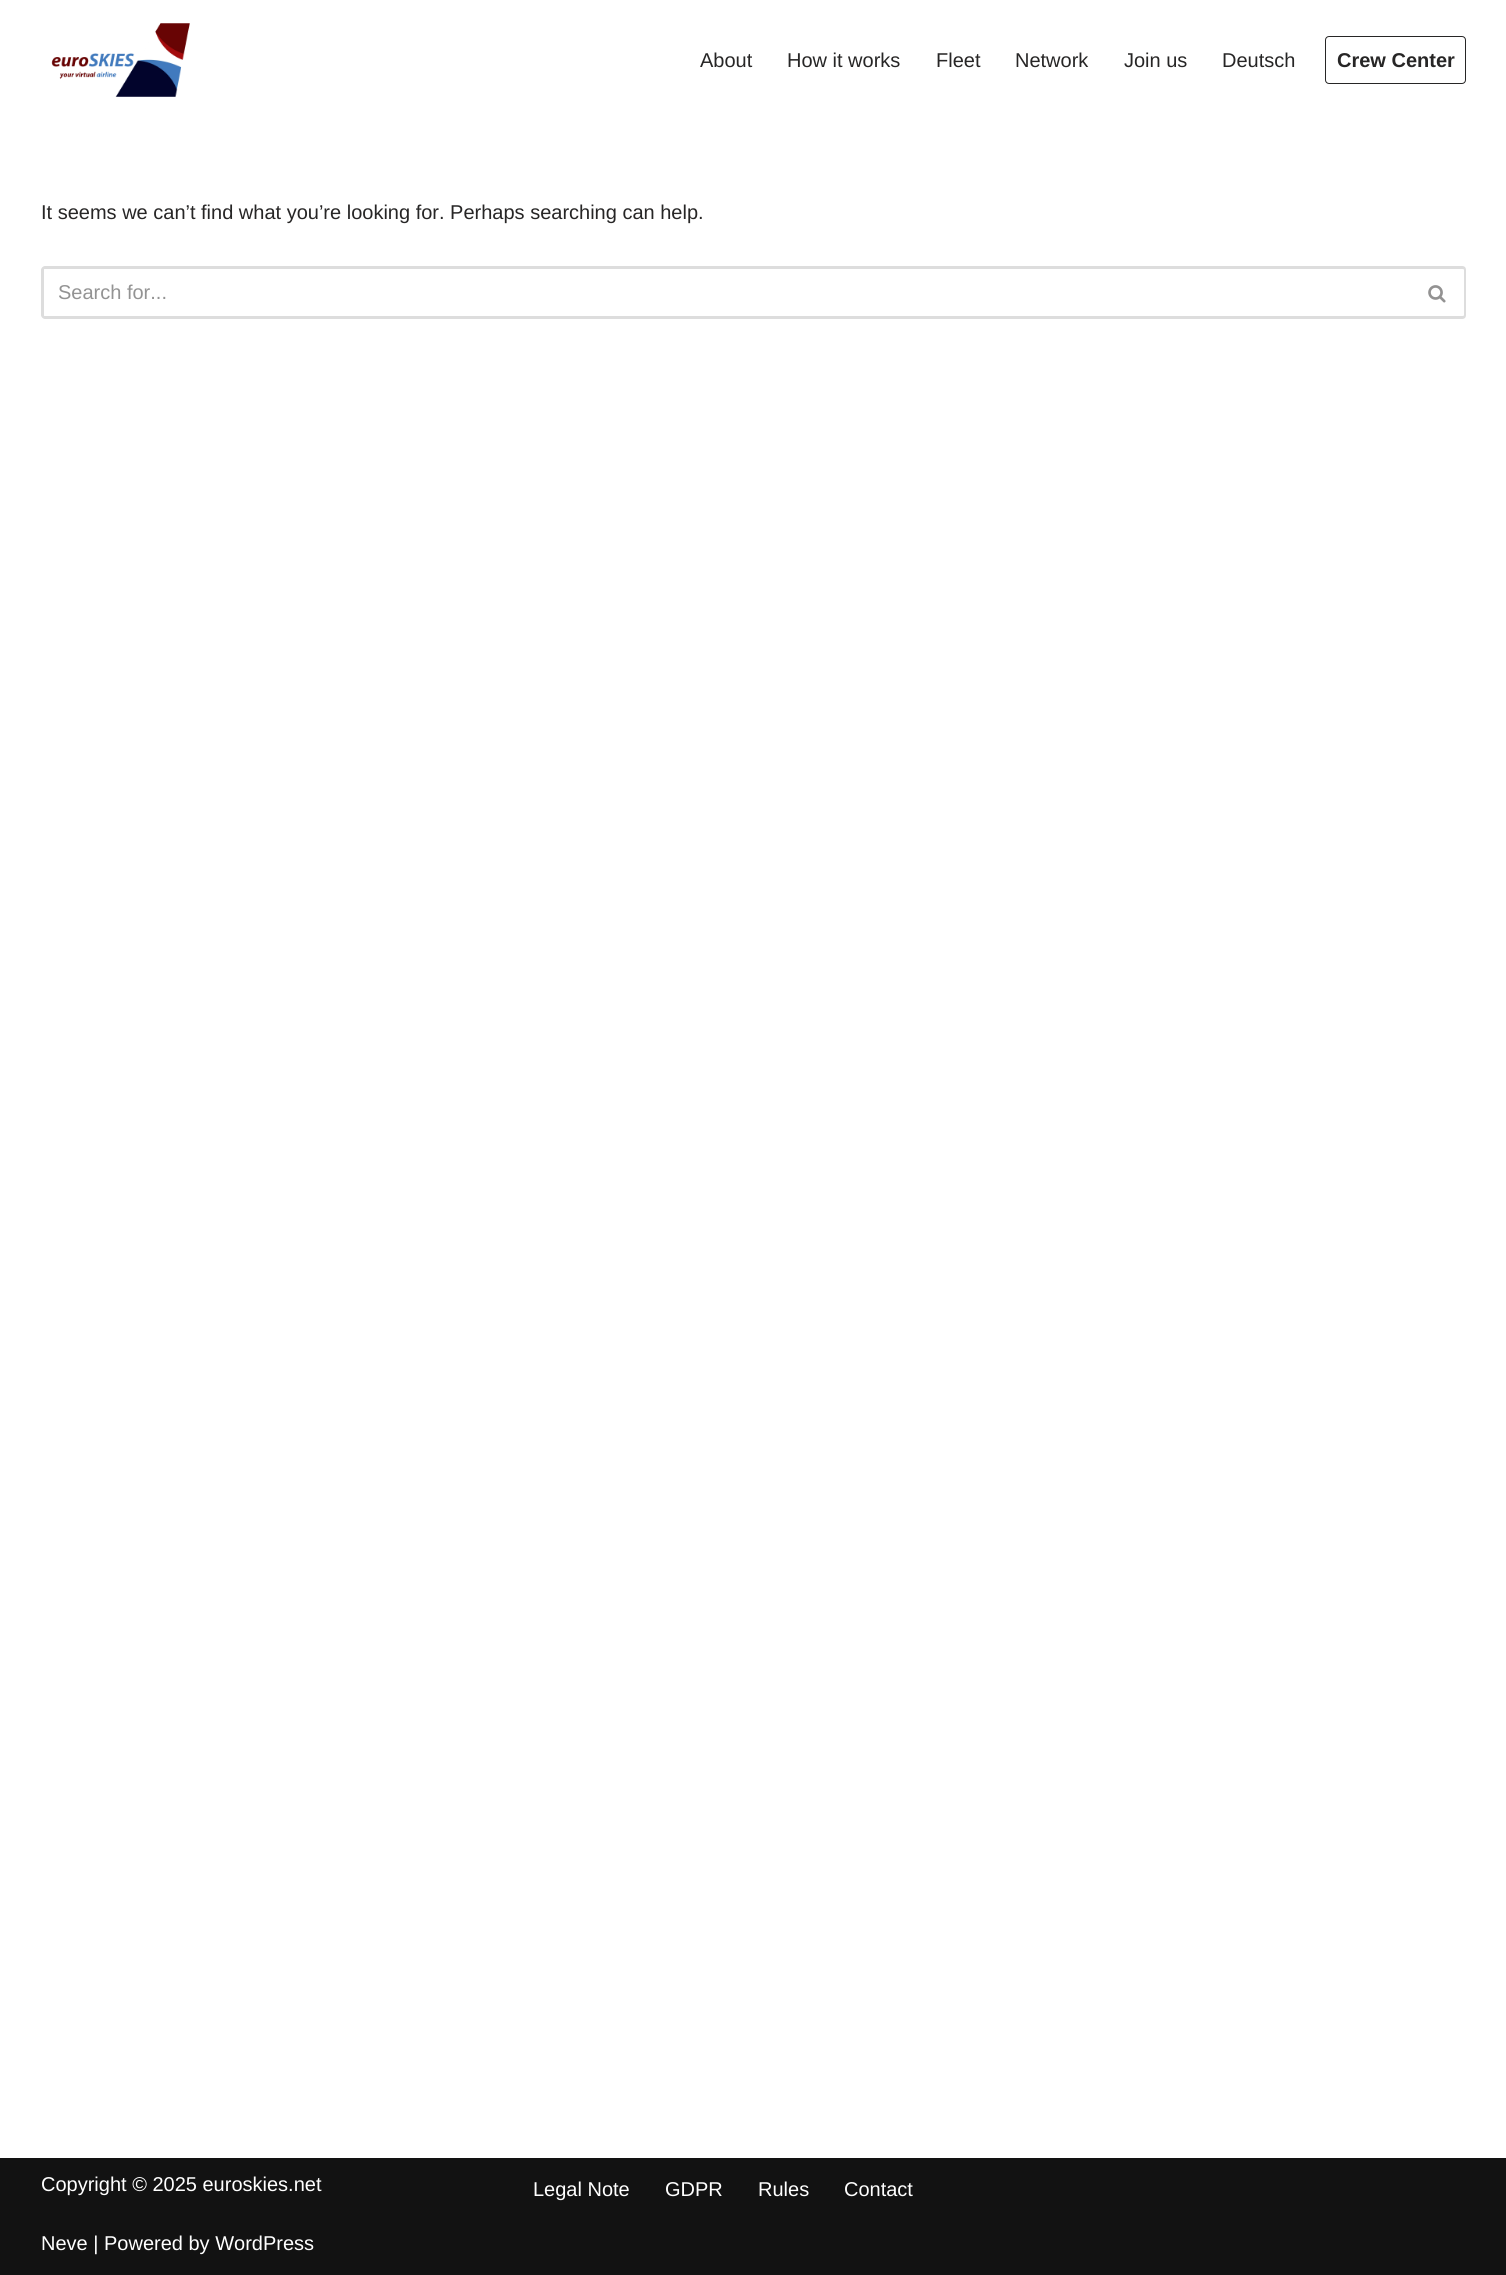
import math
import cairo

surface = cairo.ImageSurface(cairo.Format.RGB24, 1506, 2275)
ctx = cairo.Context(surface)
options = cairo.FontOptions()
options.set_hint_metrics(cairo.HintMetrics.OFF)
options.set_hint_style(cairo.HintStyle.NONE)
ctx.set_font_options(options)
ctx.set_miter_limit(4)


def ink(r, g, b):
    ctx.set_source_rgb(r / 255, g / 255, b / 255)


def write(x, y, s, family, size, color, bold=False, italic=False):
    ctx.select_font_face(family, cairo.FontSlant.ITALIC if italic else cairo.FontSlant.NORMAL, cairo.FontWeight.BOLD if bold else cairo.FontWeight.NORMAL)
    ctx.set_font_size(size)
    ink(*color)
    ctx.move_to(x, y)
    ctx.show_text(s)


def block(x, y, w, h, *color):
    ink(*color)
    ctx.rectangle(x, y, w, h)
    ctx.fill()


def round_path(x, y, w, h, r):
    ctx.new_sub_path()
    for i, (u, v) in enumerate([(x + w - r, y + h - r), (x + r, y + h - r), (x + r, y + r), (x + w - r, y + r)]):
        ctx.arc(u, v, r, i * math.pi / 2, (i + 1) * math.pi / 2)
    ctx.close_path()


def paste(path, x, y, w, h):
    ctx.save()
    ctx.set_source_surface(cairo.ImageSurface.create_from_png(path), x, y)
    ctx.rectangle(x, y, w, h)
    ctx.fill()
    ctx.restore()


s1 = dict(family="Liberation Sans", size=20, color=(39, 38, 38))
s2 = dict(family="Liberation Sans", size=20, color=(39, 38, 38), bold=True)
s3 = dict(family="Liberation Sans", size=20, color=(147, 147, 147))
s4 = dict(family="Liberation Sans", size=20, color=(255, 255, 255))

ink(255, 255, 255)
ctx.paint()
paste("pic1.png", 51, 23, 139, 74)
write(700, 67, "About", **s1)
write(787, 67, "How it works", **s1)
write(936, 67, "Fleet", **s1)
write(1015, 67, "Network", **s1)
write(1124, 67, "Join us", **s1)
write(1222, 67, "Deutsch", **s1)
round_path(1325.5, 36.5, 140, 47, 3.5)
ctx.set_line_width(1)
ctx.stroke()
write(1337, 67, "Crew Center", **s2)
write(41, 219, "It seems we can’t find what you’re looking for. Perhaps searching can help.", **s1)
ink(221, 221, 221)
ctx.set_fill_rule(cairo.FillRule.EVEN_ODD)
ctx.new_path()
ctx.move_to(45, 266)
ctx.line_to(1410, 266)
ctx.line_to(1410, 319)
ctx.line_to(45, 319)
ctx.curve_to(43, 319, 41, 317, 41, 315)
ctx.line_to(41, 270)
ctx.curve_to(41, 268, 43, 266, 45, 266)
ctx.close_path()
ctx.move_to(45, 269)
ctx.line_to(1410, 269)
ctx.line_to(1410, 316)
ctx.line_to(45, 316)
ctx.curve_to(44, 316, 44, 316, 44, 315)
ctx.line_to(44, 270)
ctx.curve_to(44, 269, 44, 269, 45, 269)
ctx.close_path()
ctx.fill()
write(58, 299, "Search for...", **s3)
ink(221, 221, 221)
ctx.new_path()
ctx.move_to(1410, 266)
ctx.line_to(1462, 266)
ctx.curve_to(1465, 266, 1466, 268, 1466, 270)
ctx.line_to(1466, 315)
ctx.curve_to(1466, 317, 1465, 319, 1462, 319)
ctx.line_to(1410, 319)
ctx.close_path()
ctx.move_to(1410, 269)
ctx.line_to(1462, 269)
ctx.curve_to(1463, 269, 1464, 269, 1464, 270)
ctx.line_to(1464, 315)
ctx.curve_to(1464, 316, 1463, 316, 1462, 316)
ctx.line_to(1410, 316)
ctx.close_path()
ctx.fill()
paste("pic2.png", 1428, 285, 18, 18)
block(0, 2158, 1506, 117, 18, 18, 18)
write(41, 2191, "Copyright © 2025 euroskies.net", **s4)
write(41, 2250, "Neve | Powered by WordPress", **s4)
write(533, 2196, "Legal Note", **s4)
write(665, 2196, "GDPR", **s4)
write(758, 2196, "Rules", **s4)
write(844, 2196, "Contact", **s4)
surface.write_to_png("screenshot.png")
